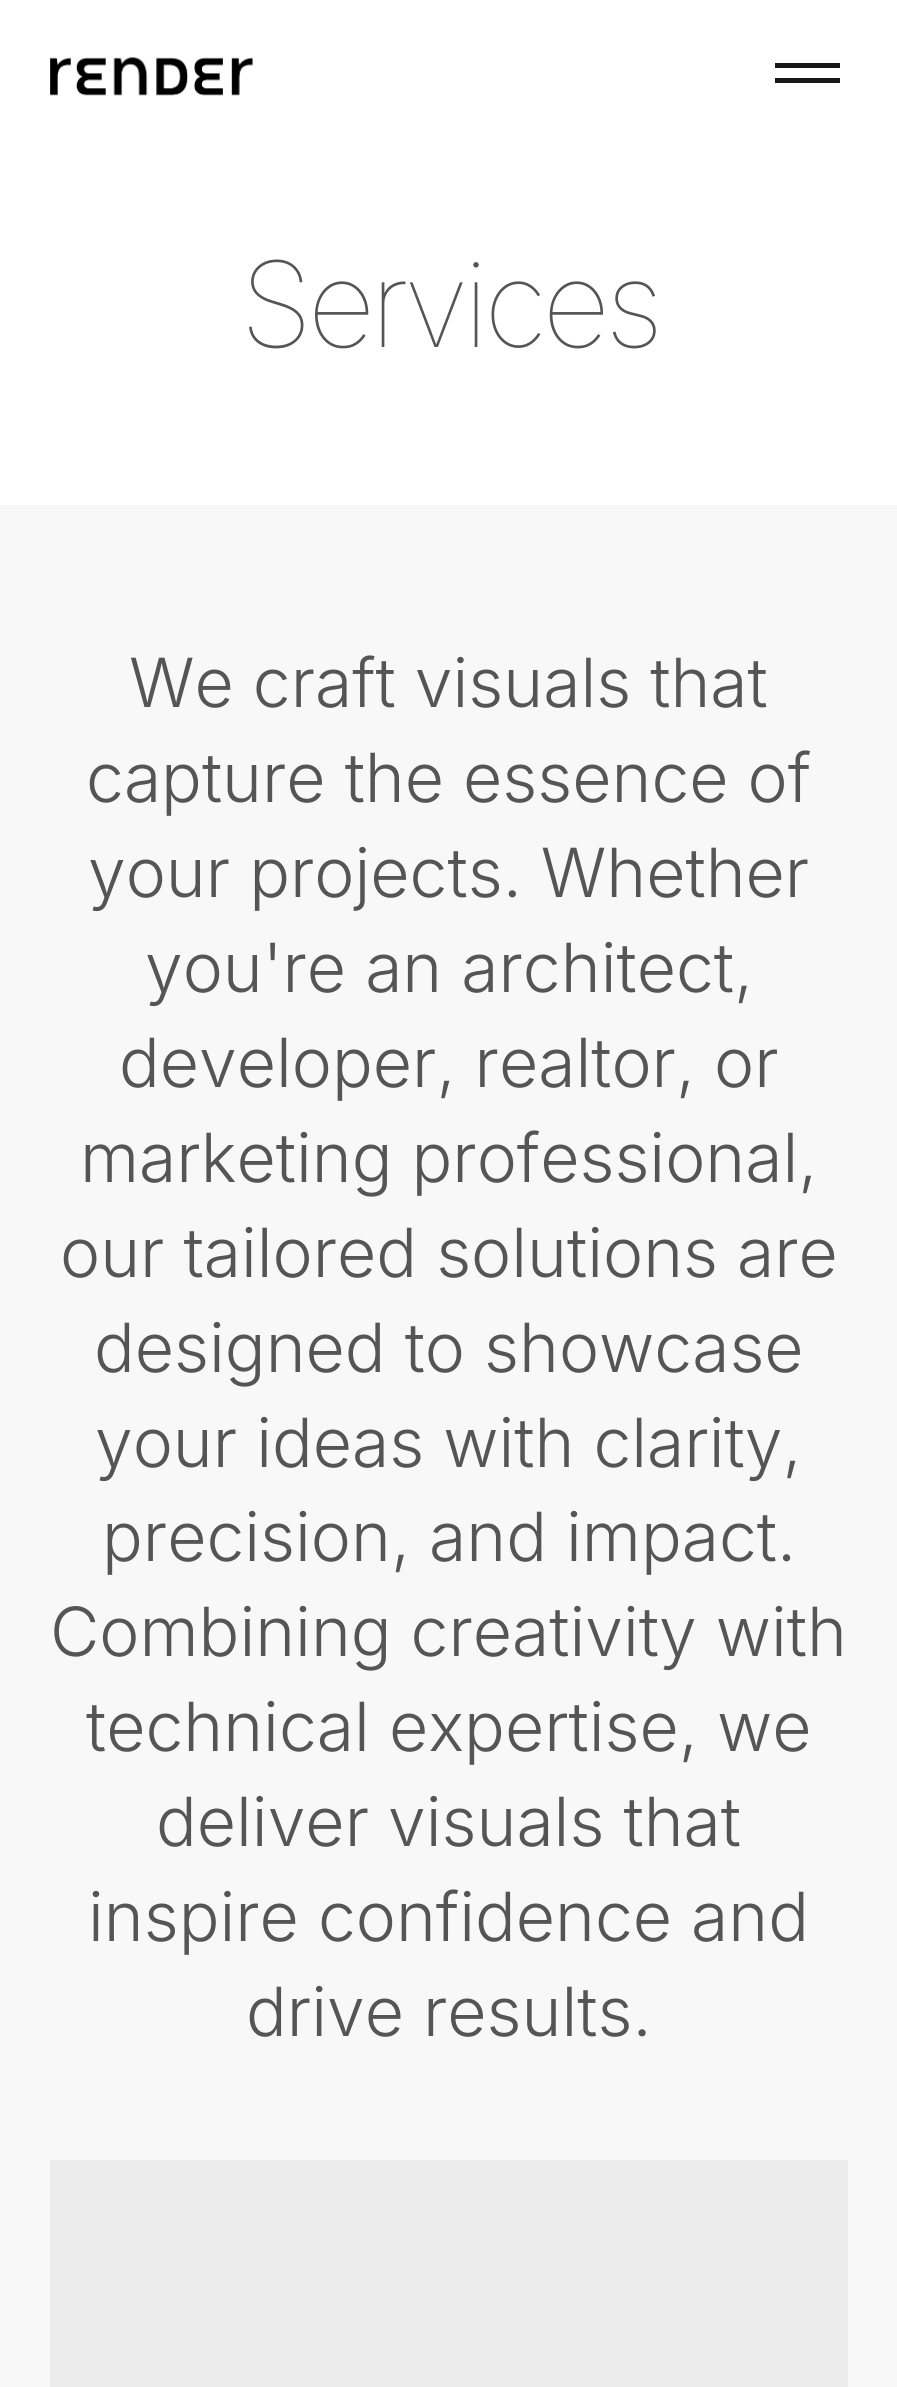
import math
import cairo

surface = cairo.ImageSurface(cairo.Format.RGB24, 897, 2387)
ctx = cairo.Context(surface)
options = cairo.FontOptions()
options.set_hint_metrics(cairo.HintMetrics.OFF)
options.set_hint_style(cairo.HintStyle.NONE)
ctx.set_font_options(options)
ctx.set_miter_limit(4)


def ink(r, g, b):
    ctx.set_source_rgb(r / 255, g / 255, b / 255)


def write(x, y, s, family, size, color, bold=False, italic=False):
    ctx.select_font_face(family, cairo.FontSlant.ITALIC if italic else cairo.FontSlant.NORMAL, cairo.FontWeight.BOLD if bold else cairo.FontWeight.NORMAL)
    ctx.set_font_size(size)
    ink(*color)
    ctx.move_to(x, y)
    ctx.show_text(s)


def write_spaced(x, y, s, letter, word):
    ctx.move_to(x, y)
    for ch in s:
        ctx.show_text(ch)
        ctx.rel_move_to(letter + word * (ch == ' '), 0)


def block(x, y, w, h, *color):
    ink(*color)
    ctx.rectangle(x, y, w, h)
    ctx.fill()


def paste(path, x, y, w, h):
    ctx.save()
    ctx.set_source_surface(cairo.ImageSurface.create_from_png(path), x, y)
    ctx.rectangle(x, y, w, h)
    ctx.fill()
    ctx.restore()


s1 = dict(family="Inter Light", size=67.75, color=(85, 85, 85))

ink(255, 255, 255)
ctx.paint()
paste("pic1.png", 50, 57, 203, 39)
block(775, 63, 65, 5, 24, 24, 24)
block(775, 78, 65, 5, 24, 24, 24)
ctx.select_font_face("Inter Thin")
ctx.set_font_size(118.5)
ink(85, 85, 85)
write_spaced(240, 347, "Services", -5, 0)
block(0, 505, 897, 1882, 248, 248, 248)
write(129, 707, "We craft visuals that", **s1)
write(86, 802, "capture the essence of", **s1)
write(88, 897, "your projects. Whether", **s1)
write(145, 992, "you're an architect,", **s1)
write(119, 1087, "developer, realtor, or", **s1)
write(80, 1182, "marketing professional,", **s1)
write(60, 1277, "our tailored solutions are", **s1)
write(94, 1372, "designed to showcase", **s1)
write(95, 1467, "your ideas with clarity,", **s1)
write(102, 1561, "precision, and impact.", **s1)
write(50, 1656, "Combining creativity with", **s1)
write(86, 1751, "technical expertise, we", **s1)
write(156, 1846, "deliver visuals that", **s1)
write(88, 1941, "inspire confidence and", **s1)
write(246, 2036, "drive results.", **s1)
block(50, 2160, 798, 227, 236, 236, 236)
surface.write_to_png("screenshot.png")
